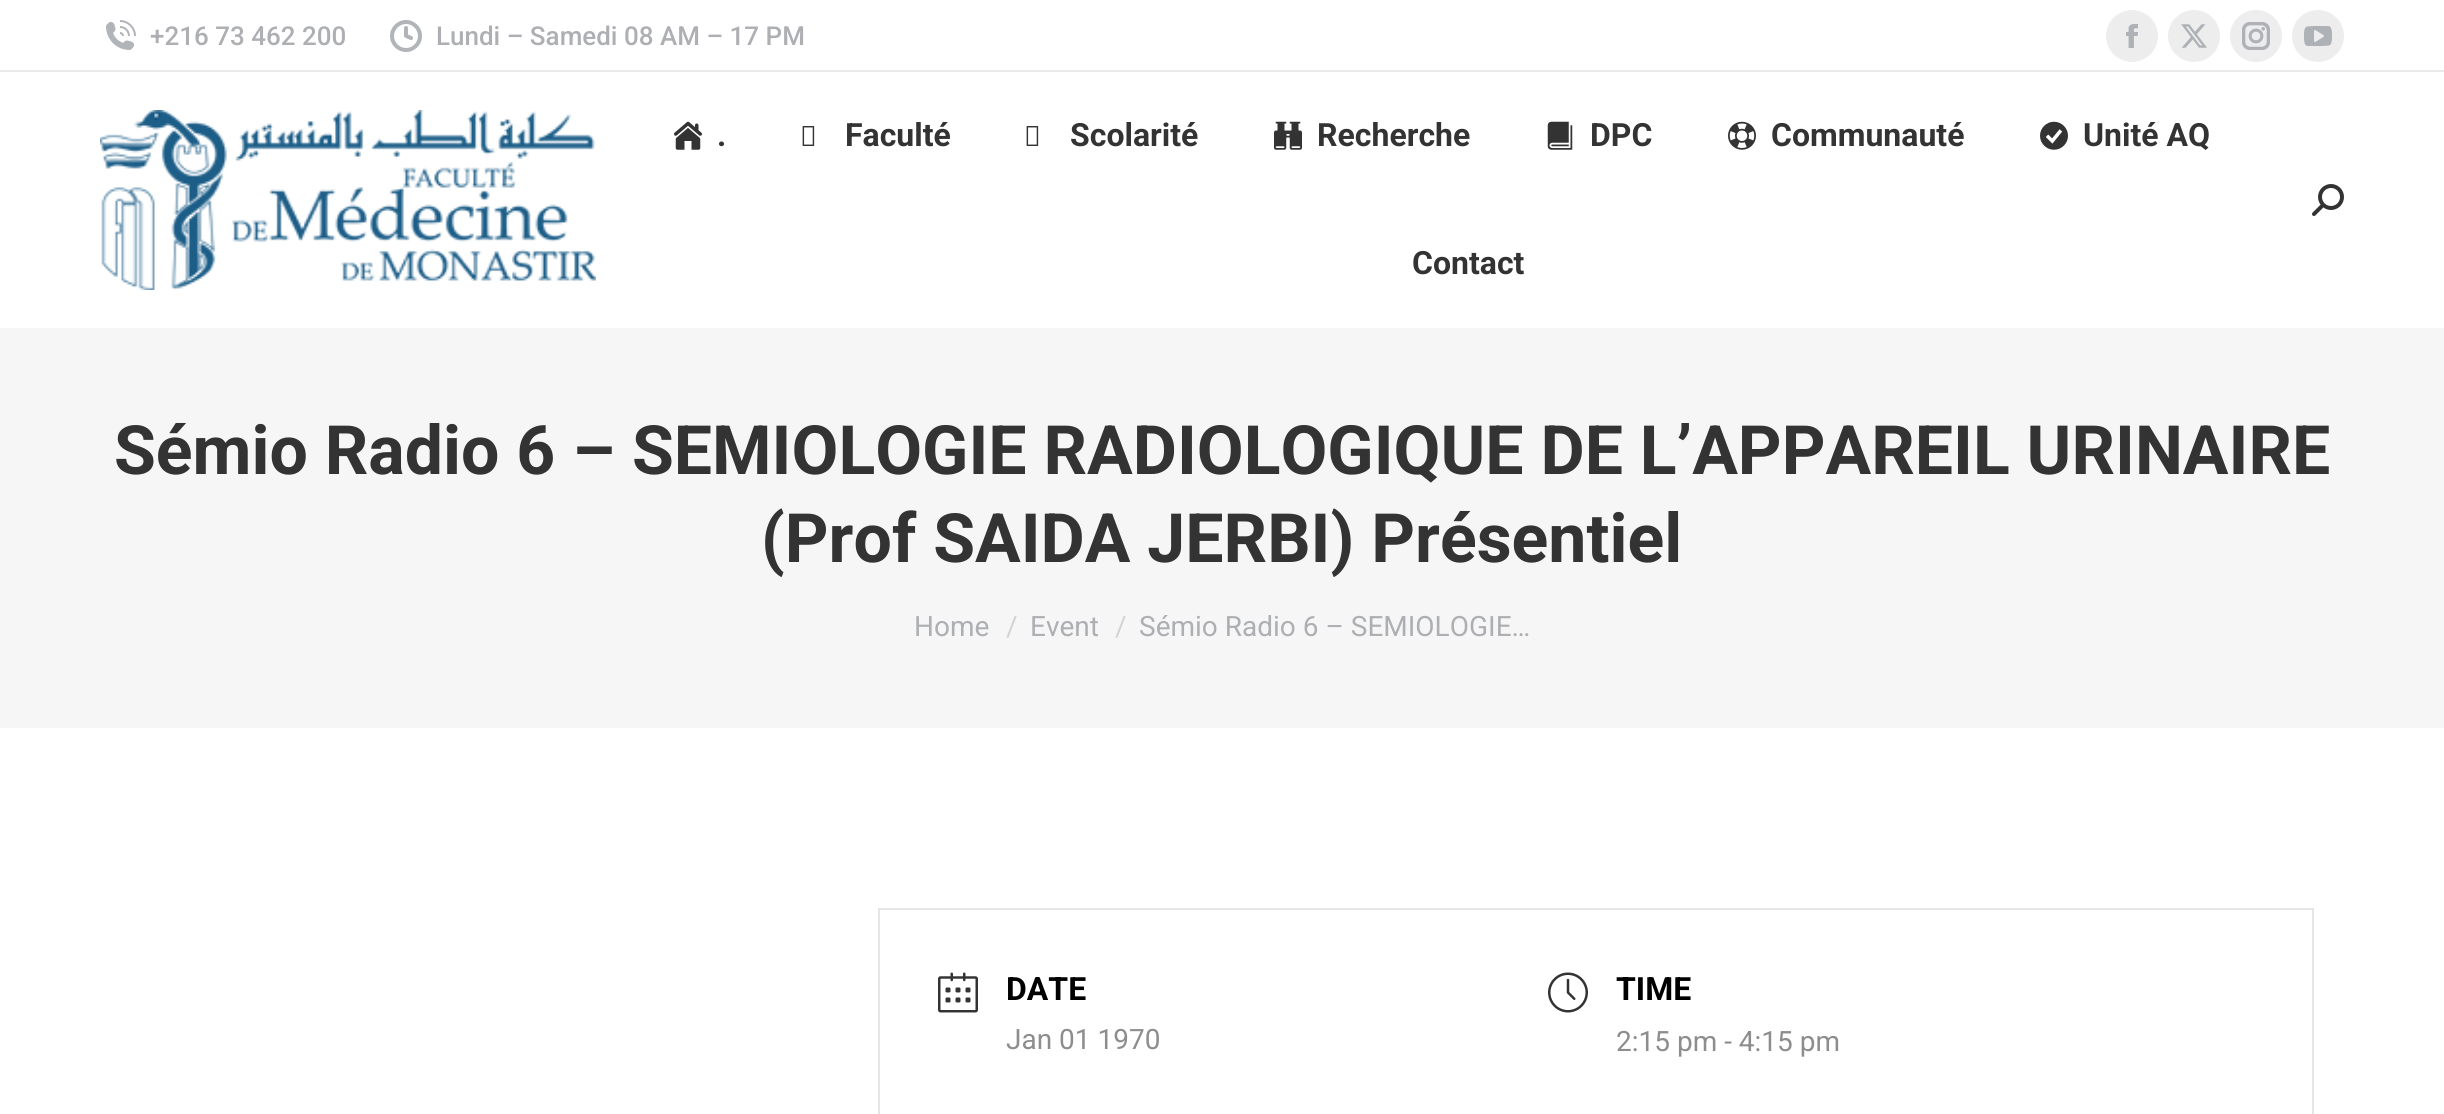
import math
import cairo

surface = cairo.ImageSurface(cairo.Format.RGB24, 2444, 1114)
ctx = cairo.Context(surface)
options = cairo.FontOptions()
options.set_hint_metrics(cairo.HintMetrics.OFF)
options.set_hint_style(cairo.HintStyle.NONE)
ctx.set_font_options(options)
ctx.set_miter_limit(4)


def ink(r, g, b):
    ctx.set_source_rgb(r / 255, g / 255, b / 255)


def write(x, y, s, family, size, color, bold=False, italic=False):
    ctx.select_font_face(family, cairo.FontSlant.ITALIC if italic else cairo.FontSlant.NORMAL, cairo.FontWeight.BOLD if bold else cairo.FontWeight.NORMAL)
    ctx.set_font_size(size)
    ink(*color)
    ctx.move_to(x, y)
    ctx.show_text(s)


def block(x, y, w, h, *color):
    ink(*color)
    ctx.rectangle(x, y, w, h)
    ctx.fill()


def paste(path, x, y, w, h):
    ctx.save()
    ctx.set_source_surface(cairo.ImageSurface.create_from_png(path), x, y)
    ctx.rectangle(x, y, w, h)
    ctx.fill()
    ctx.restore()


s1 = dict(family="Roboto Medium", size=26, color=(173, 175, 179))
s2 = dict(family="Roboto", size=32, color=(51, 51, 51), bold=True)
s3 = dict(family="Roboto", size=68, color=(51, 51, 51), bold=True)
s4 = dict(family="Roboto", size=28, color=(173, 175, 179))
s5 = dict(family="Roboto", size=28, color=(210, 211, 213))
s6 = dict(family="Roboto", size=32, color=(0, 0, 0), bold=True)
s7 = dict(family="Roboto", size=28, color=(141, 141, 141))

ink(255, 255, 255)
ctx.paint()
paste("pic1.png", 106, 20, 30, 30)
write(150, 45, "+216 73 462 200", **s1)
paste("pic2.png", 390, 20, 32, 32)
write(436, 45, "Lundi – Samedi 08 AM – 17 PM", **s1)
ink(237, 237, 237)
ctx.new_path()
ctx.arc(2132, 36, 26, 0, 2 * math.pi)
ctx.fill()
paste("pic3.png", 2126, 24, 12, 24)
ctx.arc(2194, 36, 26, 0, 2 * math.pi)
ctx.fill()
paste("pic4.png", 2181, 24, 26, 24)
ctx.arc(2256, 36, 26, 0, 2 * math.pi)
ctx.fill()
paste("pic5.png", 2242, 22, 28, 28)
ctx.arc(2318, 36, 26, 0, 2 * math.pi)
ctx.fill()
paste("pic6.png", 2304, 26, 28, 20)
block(0, 70, 2444, 2, 233, 233, 233)
paste("pic7.png", 100, 110, 496, 180)
paste("pic8.png", 674, 121, 28, 29)
write(717, 146, ".", **s2)
paste("pic9.png", 802, 126, 13, 20)
write(845, 146, "Faculté", **s2)
paste("pic9.png", 1026, 126, 13, 20)
write(1070, 146, "Scolarité", **s2)
paste("pic10.png", 1274, 121, 28, 29)
write(1317, 146, "Recherche", **s2)
paste("pic11.png", 1547, 121, 26, 29)
write(1590, 146, "DPC", **s2)
paste("pic12.png", 1728, 121, 28, 29)
write(1771, 146, "Communauté", **s2)
paste("pic13.png", 2040, 121, 28, 29)
write(2083, 146, "Unité AQ", **s2)
write(1412, 274, "Contact", **s2)
paste("pic14.png", 2312, 184, 32, 32)
block(0, 328, 2444, 400, 246, 246, 246)
write(114, 474, "Sémio Radio 6 – SEMIOLOGIE RADIOLOGIQUE DE L’APPAREIL URINAIRE", **s3)
write(761, 562, "(Prof SAIDA JERBI) Présentiel", **s3)
write(914, 636, "Home", **s4)
write(1006, 636, "/", **s5)
write(1030, 636, "Event", **s4)
write(1115, 636, "/", **s5)
write(1139, 636, "Sémio Radio 6 – SEMIOLOGIE…", **s4)
ctx.rectangle(879, 909, 1434, 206)
ink(230, 230, 230)
ctx.stroke()
paste("pic15.png", 938, 972, 40, 41)
write(1006, 1000, "DATE", **s6)
write(1006, 1049, "Jan 01 1970", **s7)
paste("pic16.png", 1548, 972, 40, 41)
write(1616, 1000, "TIME", **s6)
write(1616, 1051, "2:15 pm - 4:15 pm", **s7)
surface.write_to_png("screenshot.png")
